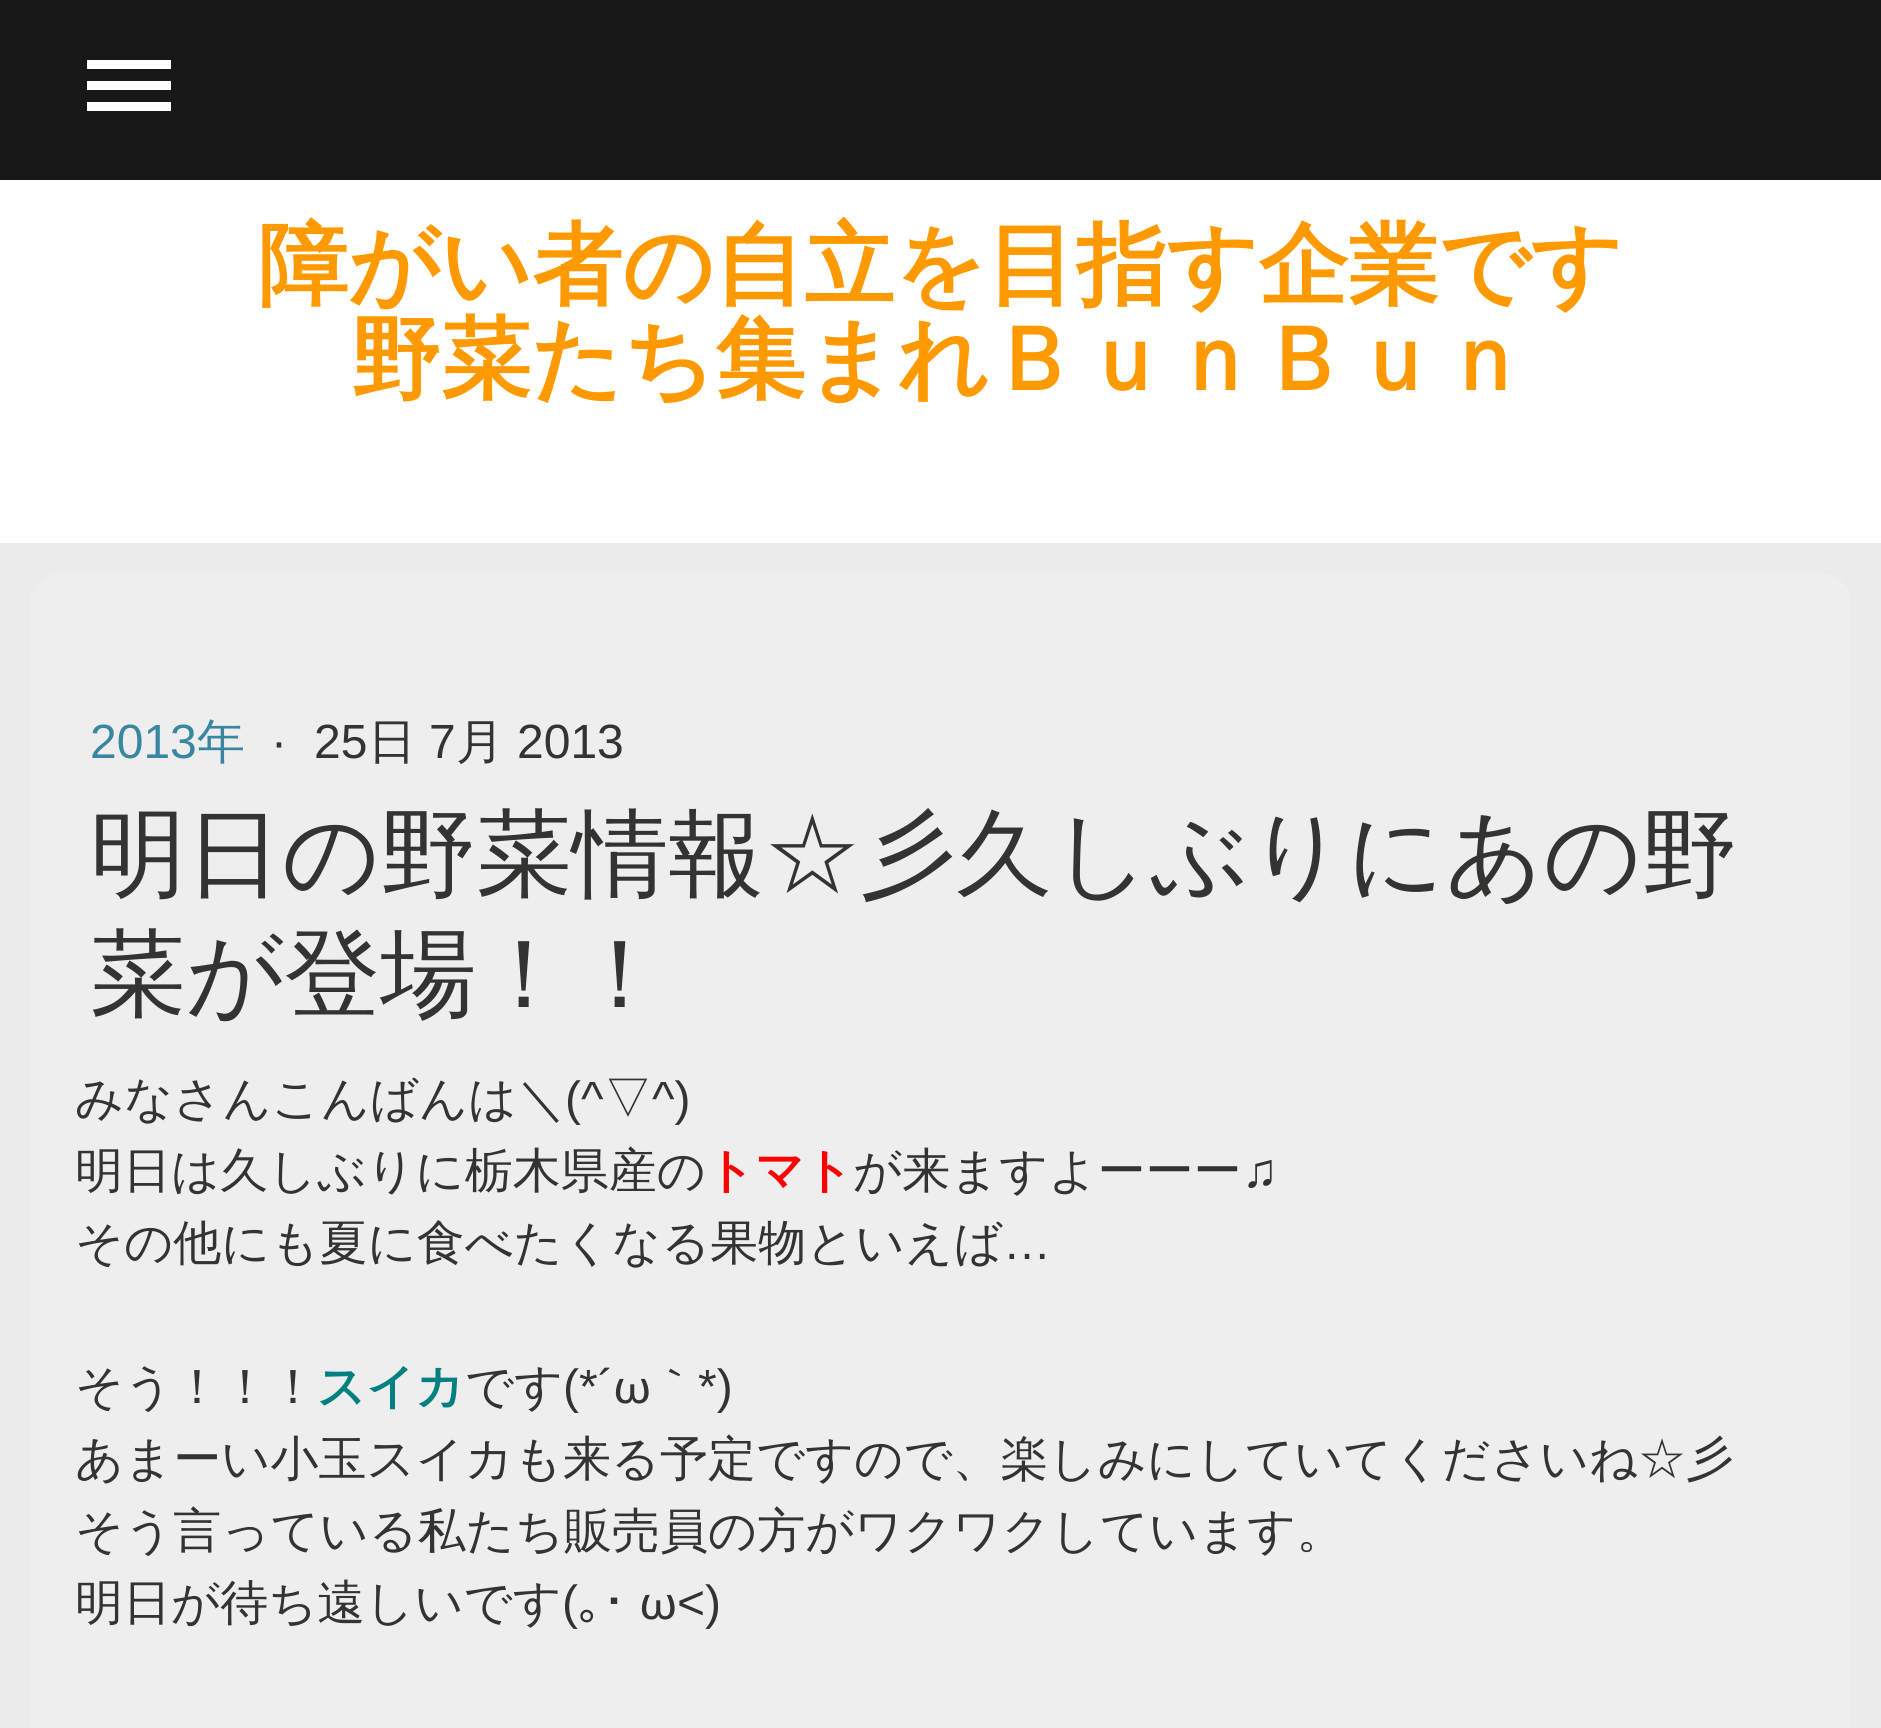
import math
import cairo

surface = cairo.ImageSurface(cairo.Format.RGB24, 1881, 1728)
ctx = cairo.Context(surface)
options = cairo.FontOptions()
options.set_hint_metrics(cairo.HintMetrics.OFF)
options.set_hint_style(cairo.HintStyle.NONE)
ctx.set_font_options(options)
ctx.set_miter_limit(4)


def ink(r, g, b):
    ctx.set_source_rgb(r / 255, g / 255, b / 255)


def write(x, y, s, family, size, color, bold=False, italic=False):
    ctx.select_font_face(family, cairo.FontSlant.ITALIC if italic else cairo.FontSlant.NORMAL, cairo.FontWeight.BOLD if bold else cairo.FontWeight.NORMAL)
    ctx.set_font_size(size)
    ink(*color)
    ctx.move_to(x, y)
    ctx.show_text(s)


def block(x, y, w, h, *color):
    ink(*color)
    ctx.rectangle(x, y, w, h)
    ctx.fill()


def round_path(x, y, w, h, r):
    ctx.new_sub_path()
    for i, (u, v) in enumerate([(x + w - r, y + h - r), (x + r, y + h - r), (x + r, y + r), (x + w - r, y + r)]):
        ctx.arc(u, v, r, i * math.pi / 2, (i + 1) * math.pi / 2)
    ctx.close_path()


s1 = dict(family="WenQuanYi Zen Hei", size=90, color=(255, 153, 0), bold=True)
s2 = dict(family="Arimo", size=48, color=(57, 134, 160))
s3 = dict(family="WenQuanYi Zen Hei Medium", size=48, color=(57, 134, 160))
s4 = dict(family="Arimo", size=48, color=(51, 51, 50))
s5 = dict(family="WenQuanYi Zen Hei Medium", size=48, color=(51, 51, 50))
s6 = dict(family="WenQuanYi Zen Hei Medium", size=96, color=(51, 51, 50))
s7 = dict(family="WenQuanYi Zen Hei", size=48, color=(255, 0, 0), bold=True)
s8 = dict(family="Liberation Sans", size=48, color=(51, 51, 50))
s9 = dict(family="WenQuanYi Zen Hei", size=48, color=(0, 128, 128), bold=True)
s10 = dict(family="IPAPGothic", size=48, color=(51, 51, 50))

ink(255, 255, 255)
ctx.paint()
block(0, 0, 1881, 180, 23, 23, 23)
block(87, 81, 84, 9, 255, 255, 255)
block(87, 60, 84, 9, 255, 255, 255)
block(87, 102, 84, 9, 255, 255, 255)
write(258, 296, "障がい者の自立を目指す企業です", **s1)
write(351, 390, "野菜たち集まれＢｕｎＢｕｎ", **s1)
block(0, 543, 1881, 1185, 235, 235, 235)
ink(238, 238, 238)
round_path(30, 573, 1821, 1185, 30)
ctx.fill()
write(90, 758, "2013", **s2)
write(197, 758, "年", **s3)
write(271, 758, "·", **s4)
write(314, 758, "25", **s4)
write(368, 758, "日", **s5)
write(429, 758, "7", **s4)
write(456, 758, "月", **s5)
write(517, 758, "2013", **s4)
write(90, 887, "明日の野菜情報☆彡久しぶりにあの野", **s6)
write(90, 1007, "菜が登場！！", **s6)
write(75, 1115, "みなさんこんばんは＼", **s5)
write(565, 1115, "(^", **s4)
write(604, 1115, "▽", **s5)
write(652, 1115, "^)", **s4)
write(75, 1187, "明日は久しぶりに栃木県産の", **s5)
write(706, 1187, "トマト", **s7)
write(853, 1187, "が来ますよーーー", **s5)
write(1242, 1187, "♫", **s8)
write(75, 1259, "その他にも夏に食べたくなる果物といえば", **s5)
write(1003, 1259, "…", **s4)
write(75, 1403, "そう！！！", **s5)
write(317, 1403, "スイカ", **s9)
write(465, 1403, "です", **s5)
write(563, 1403, "(*´", **s4)
write(614, 1403, "ω｀", **s5)
write(698, 1403, "*)", **s4)
write(75, 1475, "あまーい小玉スイカも来る予定ですので、楽しみにしていてくださいね☆彡", **s5)
write(75, 1547, "そう言っている私たち販売員の方がワクワクしています。", **s5)
write(75, 1619, "明日が待ち遠しいです", **s5)
write(562, 1619, "(", **s4)
write(578, 1619, "｡･", **s10)
write(640, 1619, "ω", **s5)
write(677, 1619, "<)", **s4)
surface.write_to_png("screenshot.png")
